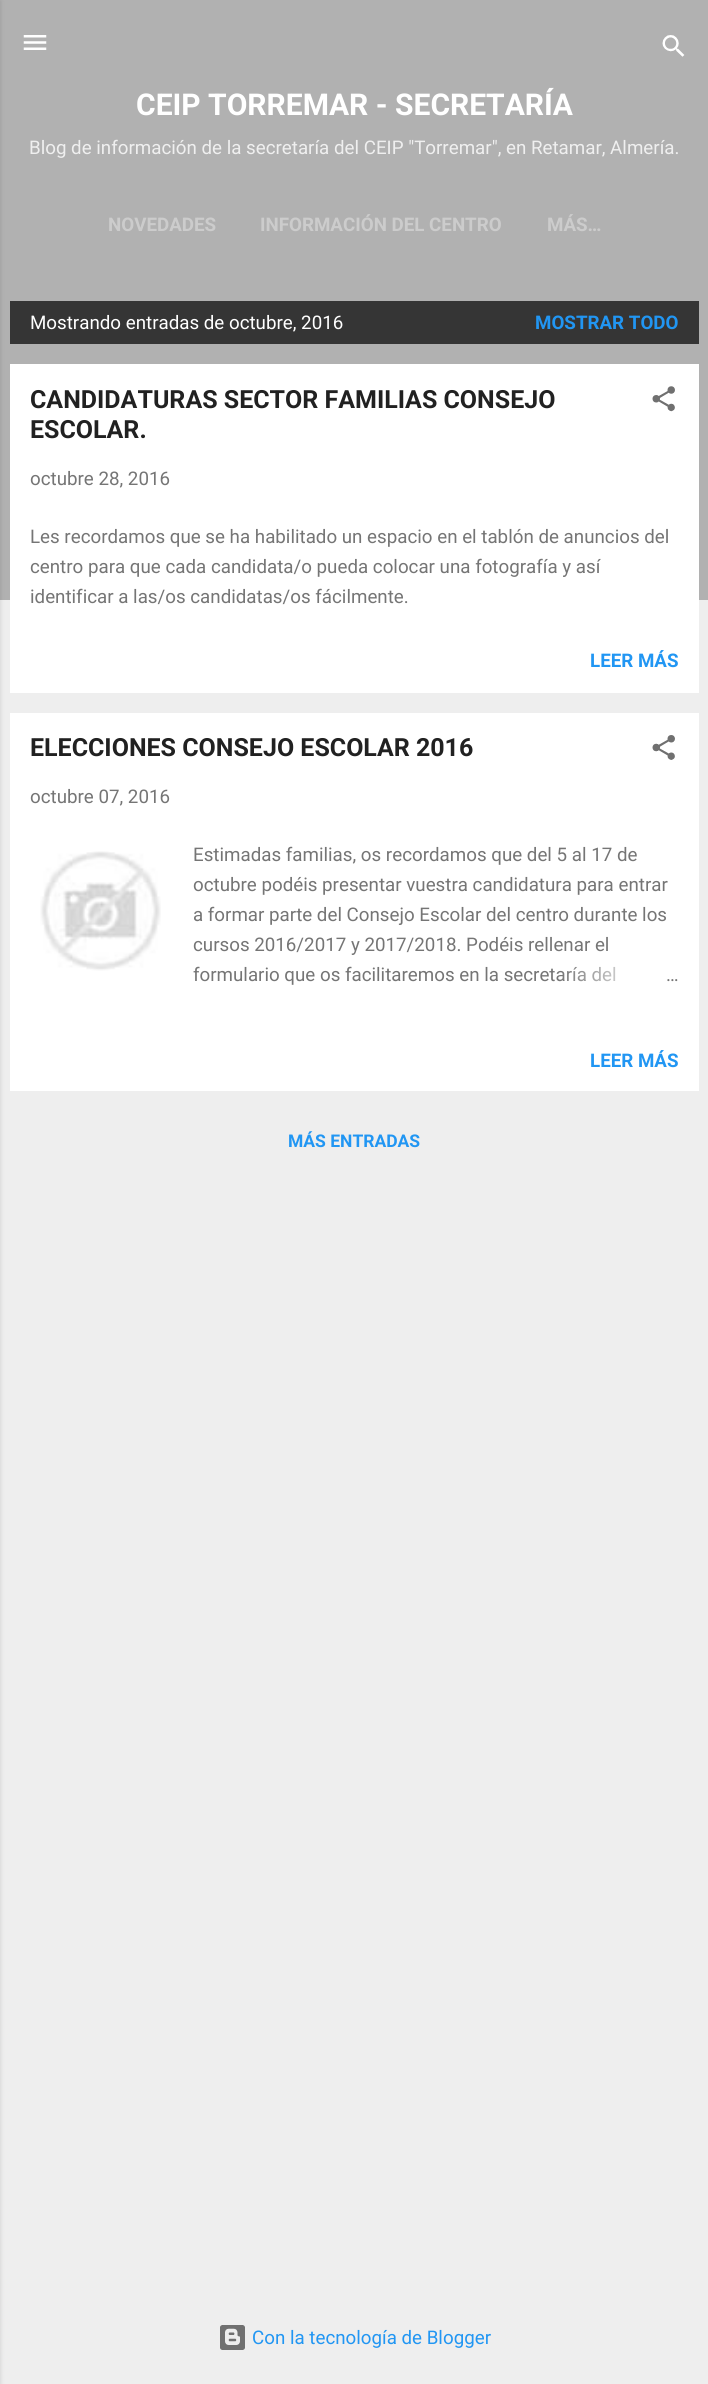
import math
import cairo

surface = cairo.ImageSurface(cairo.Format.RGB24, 708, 2384)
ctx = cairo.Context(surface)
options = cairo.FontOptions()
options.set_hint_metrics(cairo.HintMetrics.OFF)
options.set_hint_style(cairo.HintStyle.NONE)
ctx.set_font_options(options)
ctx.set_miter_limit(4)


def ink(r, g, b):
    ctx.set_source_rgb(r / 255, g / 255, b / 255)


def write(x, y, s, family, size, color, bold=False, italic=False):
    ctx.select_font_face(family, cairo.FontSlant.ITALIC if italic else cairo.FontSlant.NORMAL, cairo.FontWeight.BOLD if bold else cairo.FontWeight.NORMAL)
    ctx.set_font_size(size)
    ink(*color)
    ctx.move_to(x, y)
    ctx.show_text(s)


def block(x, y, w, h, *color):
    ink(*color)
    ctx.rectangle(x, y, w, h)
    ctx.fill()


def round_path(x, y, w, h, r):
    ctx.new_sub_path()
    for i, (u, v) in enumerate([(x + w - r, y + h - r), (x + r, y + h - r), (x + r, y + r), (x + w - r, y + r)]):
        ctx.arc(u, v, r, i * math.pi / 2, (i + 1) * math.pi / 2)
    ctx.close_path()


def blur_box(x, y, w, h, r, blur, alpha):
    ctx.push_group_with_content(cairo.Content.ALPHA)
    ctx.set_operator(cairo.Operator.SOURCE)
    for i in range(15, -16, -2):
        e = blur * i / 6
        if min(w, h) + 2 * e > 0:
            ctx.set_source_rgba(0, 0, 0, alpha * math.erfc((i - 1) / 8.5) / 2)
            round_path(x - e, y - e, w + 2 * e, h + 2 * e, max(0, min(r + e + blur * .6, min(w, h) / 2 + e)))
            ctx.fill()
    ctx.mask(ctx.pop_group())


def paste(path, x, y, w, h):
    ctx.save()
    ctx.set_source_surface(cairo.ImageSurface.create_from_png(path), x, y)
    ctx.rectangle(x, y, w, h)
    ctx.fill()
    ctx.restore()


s1 = dict(family="Roboto", size=30, color=(255, 255, 255), bold=True)
s2 = dict(family="Roboto", size=18.75, color=(239, 239, 239))
s3 = dict(family="Roboto", size=18.75, color=(204, 204, 204), bold=True)
s4 = dict(family="Roboto", size=18.75, color=(255, 255, 255))
s5 = dict(family="Roboto", size=18.75, color=(33, 150, 243), bold=True)
s6 = dict(family="Roboto", size=25, color=(33, 33, 33), bold=True)
s7 = dict(family="Roboto", size=18.75, color=(117, 117, 117))
s8 = dict(family="Roboto", size=17.5, color=(33, 150, 243), bold=True)
s9 = dict(family="Roboto", size=18.75, color=(33, 150, 243))

ink(238, 238, 238)
ctx.paint()
block(0, 0, 708, 600, 177, 177, 177)
ink(0, 0, 0)
blur_box(-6, 1, 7, 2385, 0, 2, 0.1)
paste("pic1.png", 23, 35, 24, 15)
paste("pic2.png", 662, 35, 23, 22)
write(136, 115, "CEIP TORREMAR - SECRETARÍA", **s1)
write(29, 154, "Blog de información de la secretaría del CEIP \"Torremar\", en Retamar, Almería.", **s2)
write(108, 231, "NOVEDADES", **s3)
write(260, 231, "INFORMACIÓN DEL CENTRO", **s3)
write(547, 231, "MÁS…", **s3)
block(10, 301, 689, 43, 53, 53, 53)
write(30, 329, "Mostrando entradas de octubre, 2016", **s4)
write(535, 329, "MOSTRAR TODO", **s5)
block(10, 364, 689, 329, 255, 255, 255)
write(30, 408, "CANDIDATURAS SECTOR FAMILIAS CONSEJO", **s6)
write(30, 438, "ESCOLAR.", **s6)
paste("pic3.png", 652, 386, 23, 26)
write(30, 485, "octubre 28, 2016", **s7)
write(30, 543, "Les recordamos que se ha habilitado un espacio en el tablón de anuncios del", **s7)
write(30, 573, "centro para que cada candidata/o pueda colocar una fotografía y así", **s7)
write(30, 603, "identificar a las/os candidatas/os fácilmente.", **s7)
write(590, 667, "LEER MÁS", **s5)
block(10, 713, 689, 378, 255, 255, 255)
write(30, 756, "ELECCIONES CONSEJO ESCOLAR 2016", **s6)
paste("pic4.png", 652, 735, 23, 25)
write(30, 803, "octubre 07, 2016", **s7)
paste("pic5.png", 40, 851, 121, 120)
write(193, 861, "Estimadas familias, os recordamos que del 5 al 17 de", **s7)
write(193, 891, "octubre podéis presentar vuestra candidatura para entrar", **s7)
write(193, 921, "a formar parte del Consejo Escolar del centro durante los", **s7)
write(193, 951, "cursos 2016/2017 y 2017/2018. Podéis rellenar el", **s7)
write(193, 981, "formulario que os facilitaremos en la secretaría del", **s7)
gradient = cairo.LinearGradient(679, 975, 559, 975)
gradient.add_color_stop_rgba(0, 1, 1, 1, 1)
gradient.add_color_stop_rgba(0.2, 1, 1, 1, 1)
gradient.add_color_stop_rgba(1, 1, 1, 1, 0)
ctx.set_source(gradient)
ctx.rectangle(561, 966, 55, 16)
ctx.fill()
write(666, 981, "…", **s7)
write(590, 1067, "LEER MÁS", **s5)
write(288, 1147, "MÁS ENTRADAS", **s8)
paste("pic6.png", 220, 2325, 25, 25)
write(252, 2344, "Con la tecnología de Blogger", **s9)
surface.write_to_png("screenshot.png")
